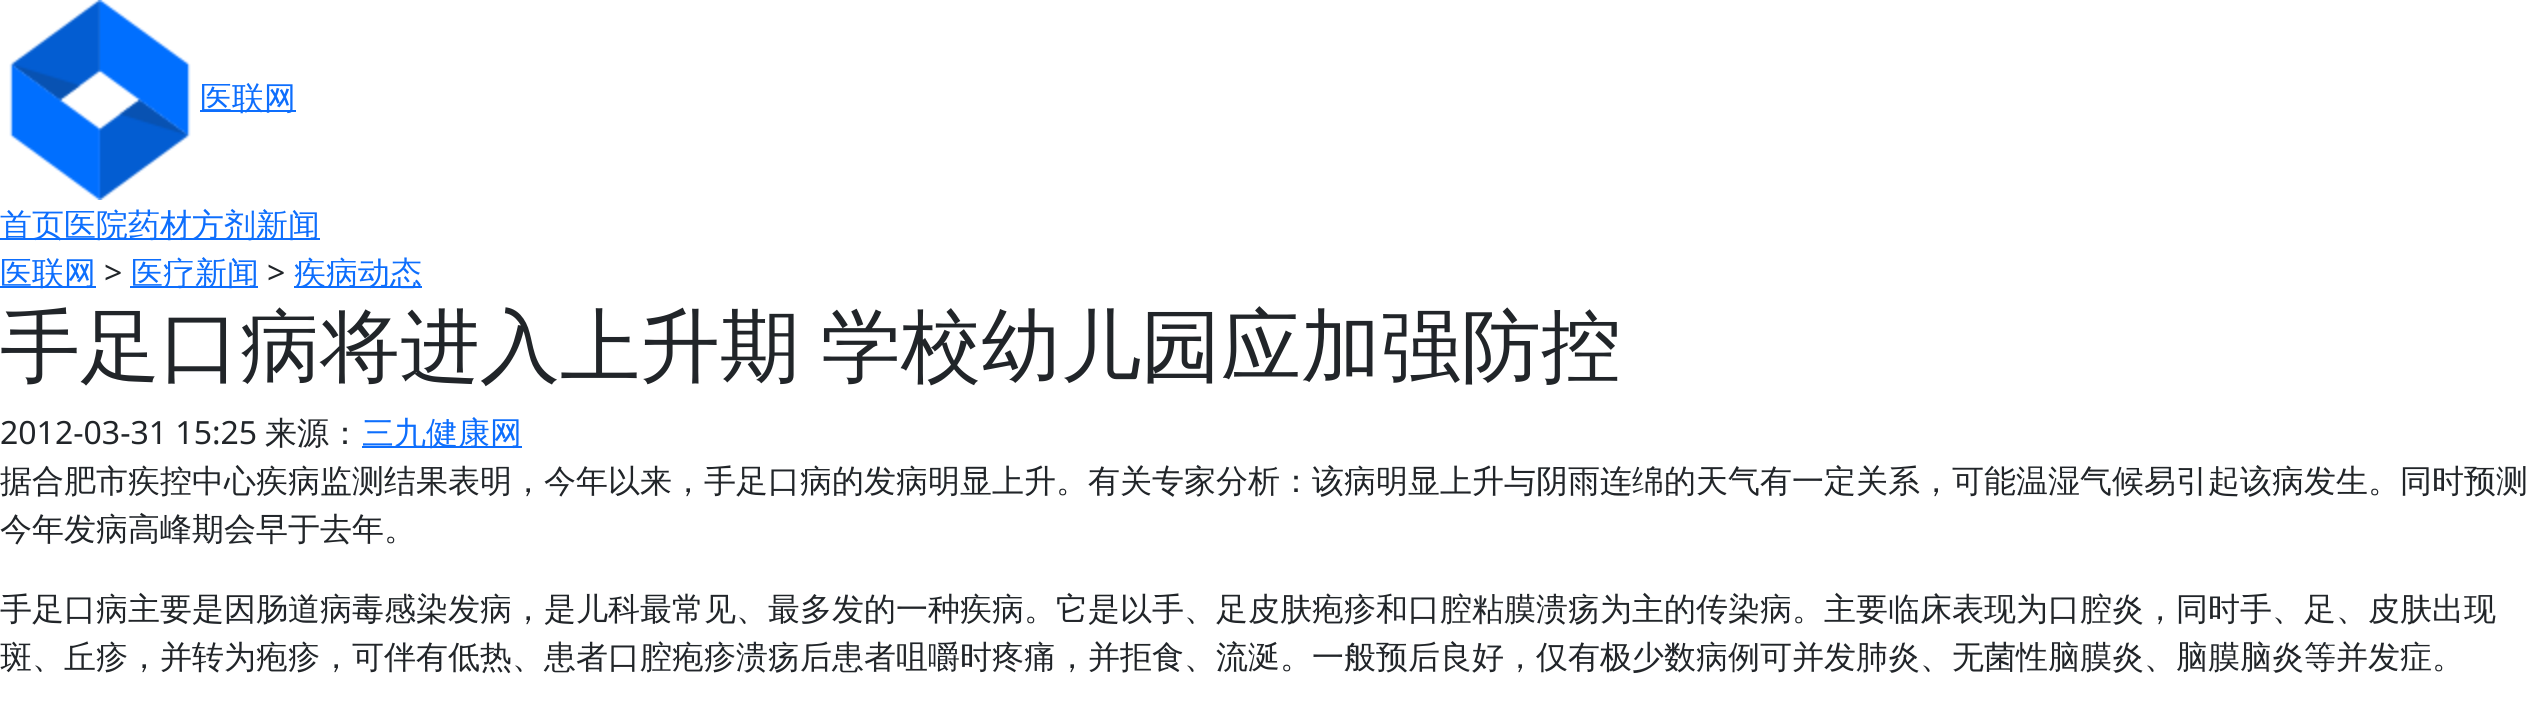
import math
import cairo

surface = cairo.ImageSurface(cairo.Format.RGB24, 2547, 715)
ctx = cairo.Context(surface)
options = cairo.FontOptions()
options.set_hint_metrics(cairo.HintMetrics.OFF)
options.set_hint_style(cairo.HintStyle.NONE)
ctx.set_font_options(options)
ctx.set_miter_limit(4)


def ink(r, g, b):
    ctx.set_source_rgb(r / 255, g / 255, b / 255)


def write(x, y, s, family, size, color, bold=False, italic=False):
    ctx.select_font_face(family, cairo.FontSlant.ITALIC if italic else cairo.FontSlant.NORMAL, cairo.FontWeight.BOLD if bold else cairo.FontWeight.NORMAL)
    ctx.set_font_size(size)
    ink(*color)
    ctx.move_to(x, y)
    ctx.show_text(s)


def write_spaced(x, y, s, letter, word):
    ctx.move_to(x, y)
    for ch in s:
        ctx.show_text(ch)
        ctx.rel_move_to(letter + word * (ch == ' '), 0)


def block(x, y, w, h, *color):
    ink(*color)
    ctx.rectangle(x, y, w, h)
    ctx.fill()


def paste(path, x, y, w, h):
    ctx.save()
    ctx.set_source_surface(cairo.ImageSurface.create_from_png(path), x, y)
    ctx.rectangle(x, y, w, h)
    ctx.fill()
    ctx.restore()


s1 = dict(family="WenQuanYi Zen Hei Medium", size=32, color=(13, 110, 253))
s2 = dict(family="Noto Sans", size=32, color=(33, 37, 41))
s3 = dict(family="WenQuanYi Zen Hei Medium", size=32, color=(33, 37, 41))

ink(255, 255, 255)
ctx.paint()
paste("pic1.png", 9, 0, 182, 200)
block(200, 110, 96, 2, 13, 110, 253)
write(200, 109, "医联网", **s1)
block(0, 238, 320, 2, 13, 110, 253)
write(0, 236, "首页医院药材方剂新闻", **s1)
block(0, 286, 96, 2, 13, 110, 253)
write(0, 284, "医联网", **s1)
write(104, 284, ">", **s2)
block(130, 286, 128, 2, 13, 110, 253)
write(131, 284, "医疗新闻", **s1)
write(267, 284, ">", **s2)
block(294, 286, 128, 2, 13, 110, 253)
write(294, 284, "疾病动态", **s1)
ctx.set_font_size(80)
ink(33, 37, 41)
write_spaced(0, 374, "手足口病将进入上升期 学校幼儿园应加强防控", 0, -3)
write(0, 444, "2012-03-31 15:25", **s2)
write(265, 444, "来源：", **s3)
block(362, 446, 160, 2, 13, 110, 253)
write(362, 444, "三九健康网", **s1)
write(0, 492, "据合肥市疾控中心疾病监测结果表明，今年以来，手足口病的发病明显上升。有关专家分析：该病明显上升与阴雨连绵的天气有一定关系，可能温湿气候易引起该病发生。同时预测", **s3)
write(0, 540, "今年发病高峰期会早于去年。", **s3)
write(0, 620, "手足口病主要是因肠道病毒感染发病，是儿科最常见、最多发的一种疾病。它是以手、足皮肤疱疹和口腔粘膜溃疡为主的传染病。主要临床表现为口腔炎，同时手、足、皮肤出现", **s3)
write(0, 668, "斑、丘疹，并转为疱疹，可伴有低热、患者口腔疱疹溃疡后患者咀嚼时疼痛，并拒食、流涎。一般预后良好，仅有极少数病例可并发肺炎、无菌性脑膜炎、脑膜脑炎等并发症。", **s3)
surface.write_to_png("screenshot.png")
